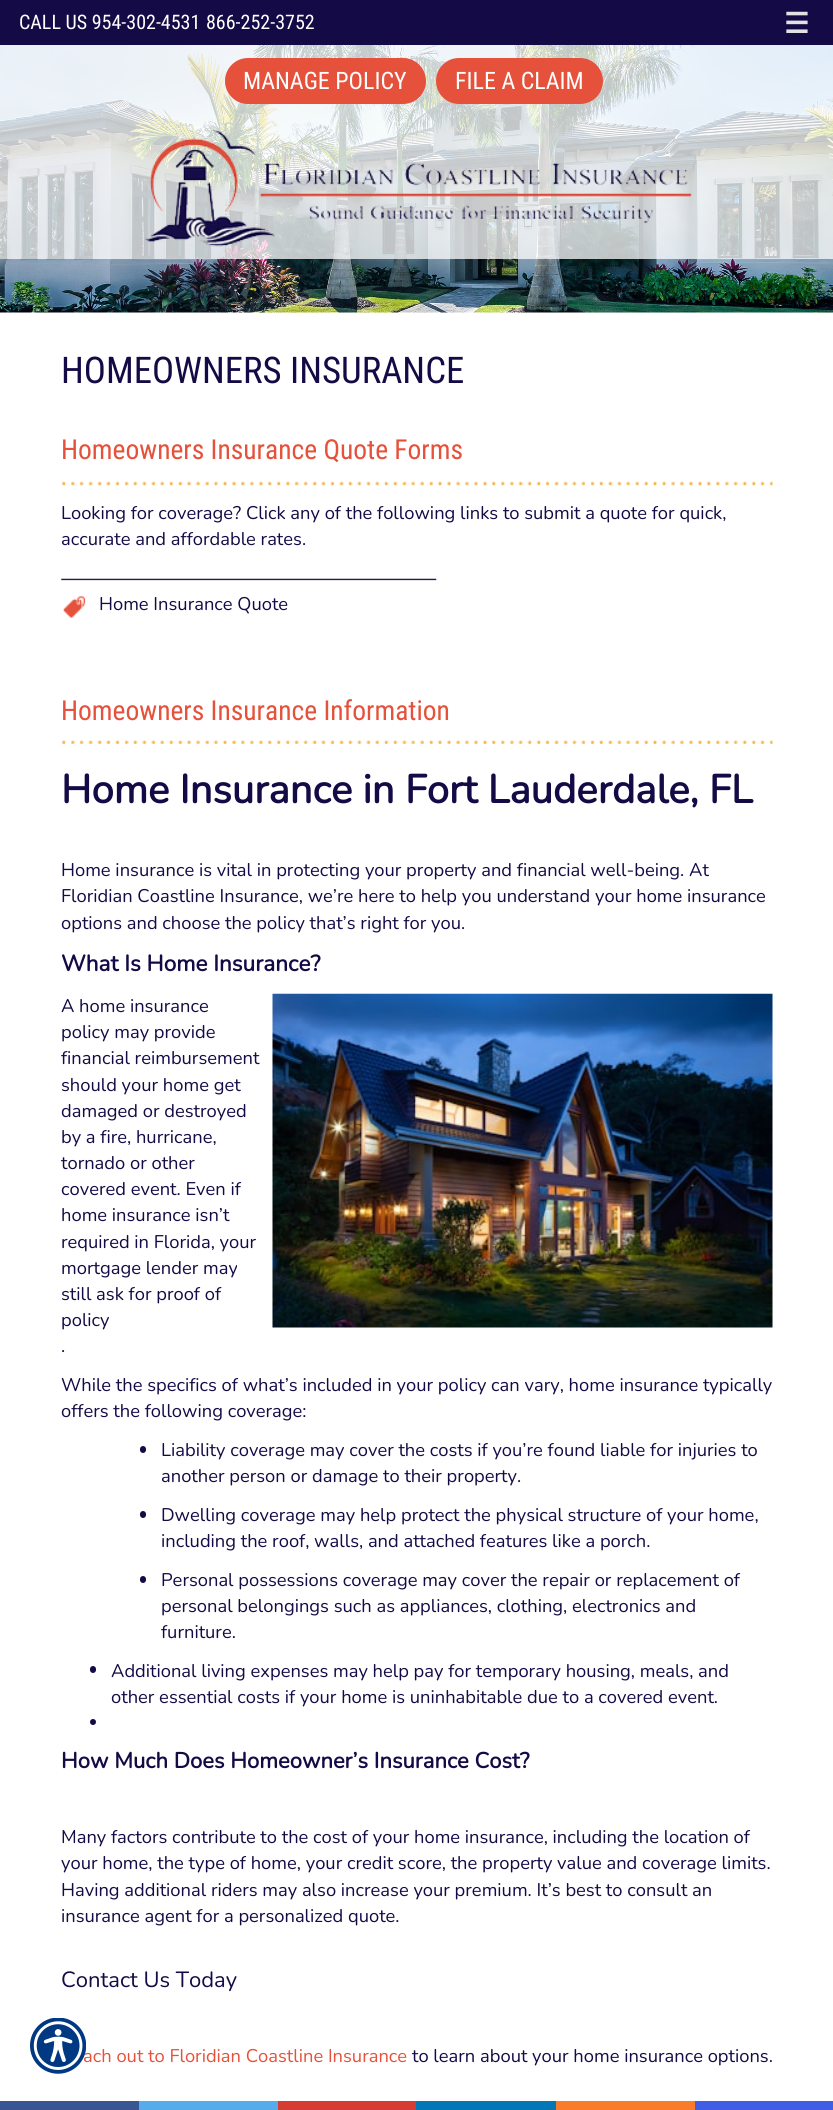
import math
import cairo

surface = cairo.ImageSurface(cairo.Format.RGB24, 833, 2110)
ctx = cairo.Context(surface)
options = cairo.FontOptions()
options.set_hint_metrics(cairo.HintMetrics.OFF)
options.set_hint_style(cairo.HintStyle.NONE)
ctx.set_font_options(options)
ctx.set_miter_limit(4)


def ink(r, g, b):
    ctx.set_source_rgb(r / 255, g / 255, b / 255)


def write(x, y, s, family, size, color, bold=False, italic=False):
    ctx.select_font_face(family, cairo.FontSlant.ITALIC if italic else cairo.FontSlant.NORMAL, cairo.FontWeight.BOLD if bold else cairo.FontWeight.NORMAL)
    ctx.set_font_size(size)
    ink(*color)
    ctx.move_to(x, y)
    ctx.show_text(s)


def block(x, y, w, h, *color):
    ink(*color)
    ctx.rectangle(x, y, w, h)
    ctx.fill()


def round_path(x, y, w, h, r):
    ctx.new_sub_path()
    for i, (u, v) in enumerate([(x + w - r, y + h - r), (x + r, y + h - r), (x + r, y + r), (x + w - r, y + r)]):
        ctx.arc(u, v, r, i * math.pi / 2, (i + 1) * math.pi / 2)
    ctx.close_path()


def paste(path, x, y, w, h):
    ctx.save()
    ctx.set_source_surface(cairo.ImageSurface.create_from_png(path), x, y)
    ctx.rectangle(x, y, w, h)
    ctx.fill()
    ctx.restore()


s1 = dict(family="Roboto Condensed", size=20, color=(255, 255, 255))
s2 = dict(family="DejaVu Sans", size=28, color=(226, 226, 226), bold=True)
s3 = dict(family="Roboto Condensed", size=24, color=(255, 255, 255))
s4 = dict(family="Roboto Condensed", size=36.75, color=(20, 11, 70))
s5 = dict(family="Roboto Condensed", size=27.5, color=(229, 81, 58))
s6 = dict(family="Nunito ExtraLight", size=18.35, color=(20, 11, 70))
s7 = dict(family="Nunito", size=40, color=(20, 11, 70), bold=True)
s8 = dict(family="Nunito", size=22.5, color=(20, 11, 70), bold=True)
s9 = dict(family="Nunito", size=22, color=(20, 11, 70), bold=True)
s10 = dict(family="Nunito ExtraLight", size=22, color=(20, 11, 70))
s11 = dict(family="Nunito ExtraLight", size=18.35, color=(229, 81, 58))

ink(255, 255, 255)
ctx.paint()
paste("pic2.png", 0, 45, 833, 268)
ctx.set_source_rgba(1, 1, 1, 0.75)
ctx.rectangle(0, 45, 833, 214)
ctx.fill()
block(0, 0, 833, 45, 20, 11, 70)
write(19, 29, "CALL US 954-302-4531", **s1)
write(206, 29, "866-252-3752", **s1)
write(784, 33, "☰", **s2)
ink(229, 81, 58)
round_path(225, 58, 201, 46, 23)
ctx.fill()
write(243, 89, "MANAGE POLICY", **s3)
ink(229, 81, 58)
round_path(436, 58, 167, 46, 23)
ctx.fill()
write(455, 89, "FILE A CLAIM", **s3)
paste("pic1.png", 144, 129, 548, 118)
write(61, 383, "HOMEOWNERS INSURANCE", **s4)
paste("pic3.png", 61, 481, 712, 5)
write(61, 459, "Homeowners Insurance Quote Forms", **s5)
write(61, 519, "Looking for coverage? Click any of the following links to submit a quote for quick,", **s6)
write(61, 545, "accurate and affordable rates.", **s6)
paste("pic4.png", 61, 578, 376, 40)
write(99, 610, "Home Insurance Quote", **s6)
paste("pic5.png", 61, 740, 712, 5)
write(61, 720, "Homeowners Insurance Information", **s5)
write(61, 803, "Home Insurance in Fort Lauderdale, FL", **s7)
write(61, 876, "Home insurance is vital in protecting your property and financial well-being. At", **s6)
write(61, 902, "Floridian Coastline Insurance, we’re here to help you understand your home insurance", **s6)
write(61, 929, "options and choose the policy that’s right for you.", **s6)
write(61, 971, "What Is Home Insurance?", **s8)
paste("pic6.png", 272, 993, 501, 335)
write(61, 1012, "A home insurance", **s6)
write(61, 1038, "policy may provide", **s6)
write(61, 1064, "financial reimbursement", **s6)
write(61, 1091, "should your home get", **s6)
write(61, 1117, "damaged or destroyed", **s6)
write(61, 1143, "by a fire, hurricane,", **s6)
write(61, 1169, "tornado or other", **s6)
write(61, 1195, "covered event. Even if", **s6)
write(61, 1221, "home insurance isn’t", **s6)
write(61, 1248, "required in Florida, your", **s6)
write(61, 1274, "mortgage lender may", **s6)
write(61, 1300, "still ask for proof of", **s6)
write(61, 1326, "policy", **s6)
write(61, 1352, ".", **s6)
write(61, 1391, "While the specifics of what’s included in your policy can vary, home insurance typically", **s6)
write(61, 1417, "offers the following coverage:", **s6)
round_path(140, 1446, 6, 7, 3)
ctx.fill()
write(161, 1456, "Liability coverage may cover the costs if you’re found liable for injuries to", **s6)
write(161, 1482, "another person or damage to their property.", **s6)
round_path(140, 1511, 6, 7, 3)
ctx.fill()
write(161, 1521, "Dwelling coverage may help protect the physical structure of your home,", **s6)
write(161, 1547, "including the roof, walls, and attached features like a porch.", **s6)
round_path(140, 1576, 6, 7, 3)
ctx.fill()
write(161, 1586, "Personal possessions coverage may cover the repair or replacement of", **s6)
write(161, 1612, "personal belongings such as appliances, clothing, electronics and", **s6)
write(161, 1638, "furniture.", **s6)
round_path(90, 1666, 6, 7, 3)
ctx.fill()
write(111, 1677, "Additional living expenses may help pay for temporary housing, meals, and", **s6)
write(111, 1703, "other essential costs if your home is uninhabitable due to a covered event.", **s6)
ctx.new_path()
ctx.arc(93, 1722, 3, 0, 2 * math.pi)
ctx.fill()
write(61, 1768, "How Much Does Homeowner’s Insurance Cost?", **s9)
write(61, 1843, "Many factors contribute to the cost of your home insurance, including the location of", **s6)
write(61, 1869, "your home, the type of home, your credit score, the property value and coverage limits.", **s6)
write(61, 1896, "Having additional riders may also increase your premium. It’s best to consult an", **s6)
write(61, 1922, "insurance agent for a personalized quote.", **s6)
write(61, 1987, "Contact Us Today", **s10)
write(83, 2062, "ach out to Floridian Coastline Insurance", **s11)
write(412, 2062, "to learn about your home insurance options.", **s6)
block(0, 2101, 139, 9, 55, 86, 147)
block(139, 2101, 139, 9, 84, 172, 237)
block(278, 2101, 138, 9, 214, 60, 49)
block(416, 2101, 140, 9, 1, 119, 181)
block(556, 2101, 139, 9, 248, 124, 42)
block(695, 2101, 138, 9, 64, 93, 230)
paste("pic7.png", 30, 2018, 56, 56)
surface.write_to_png("screenshot.png")
